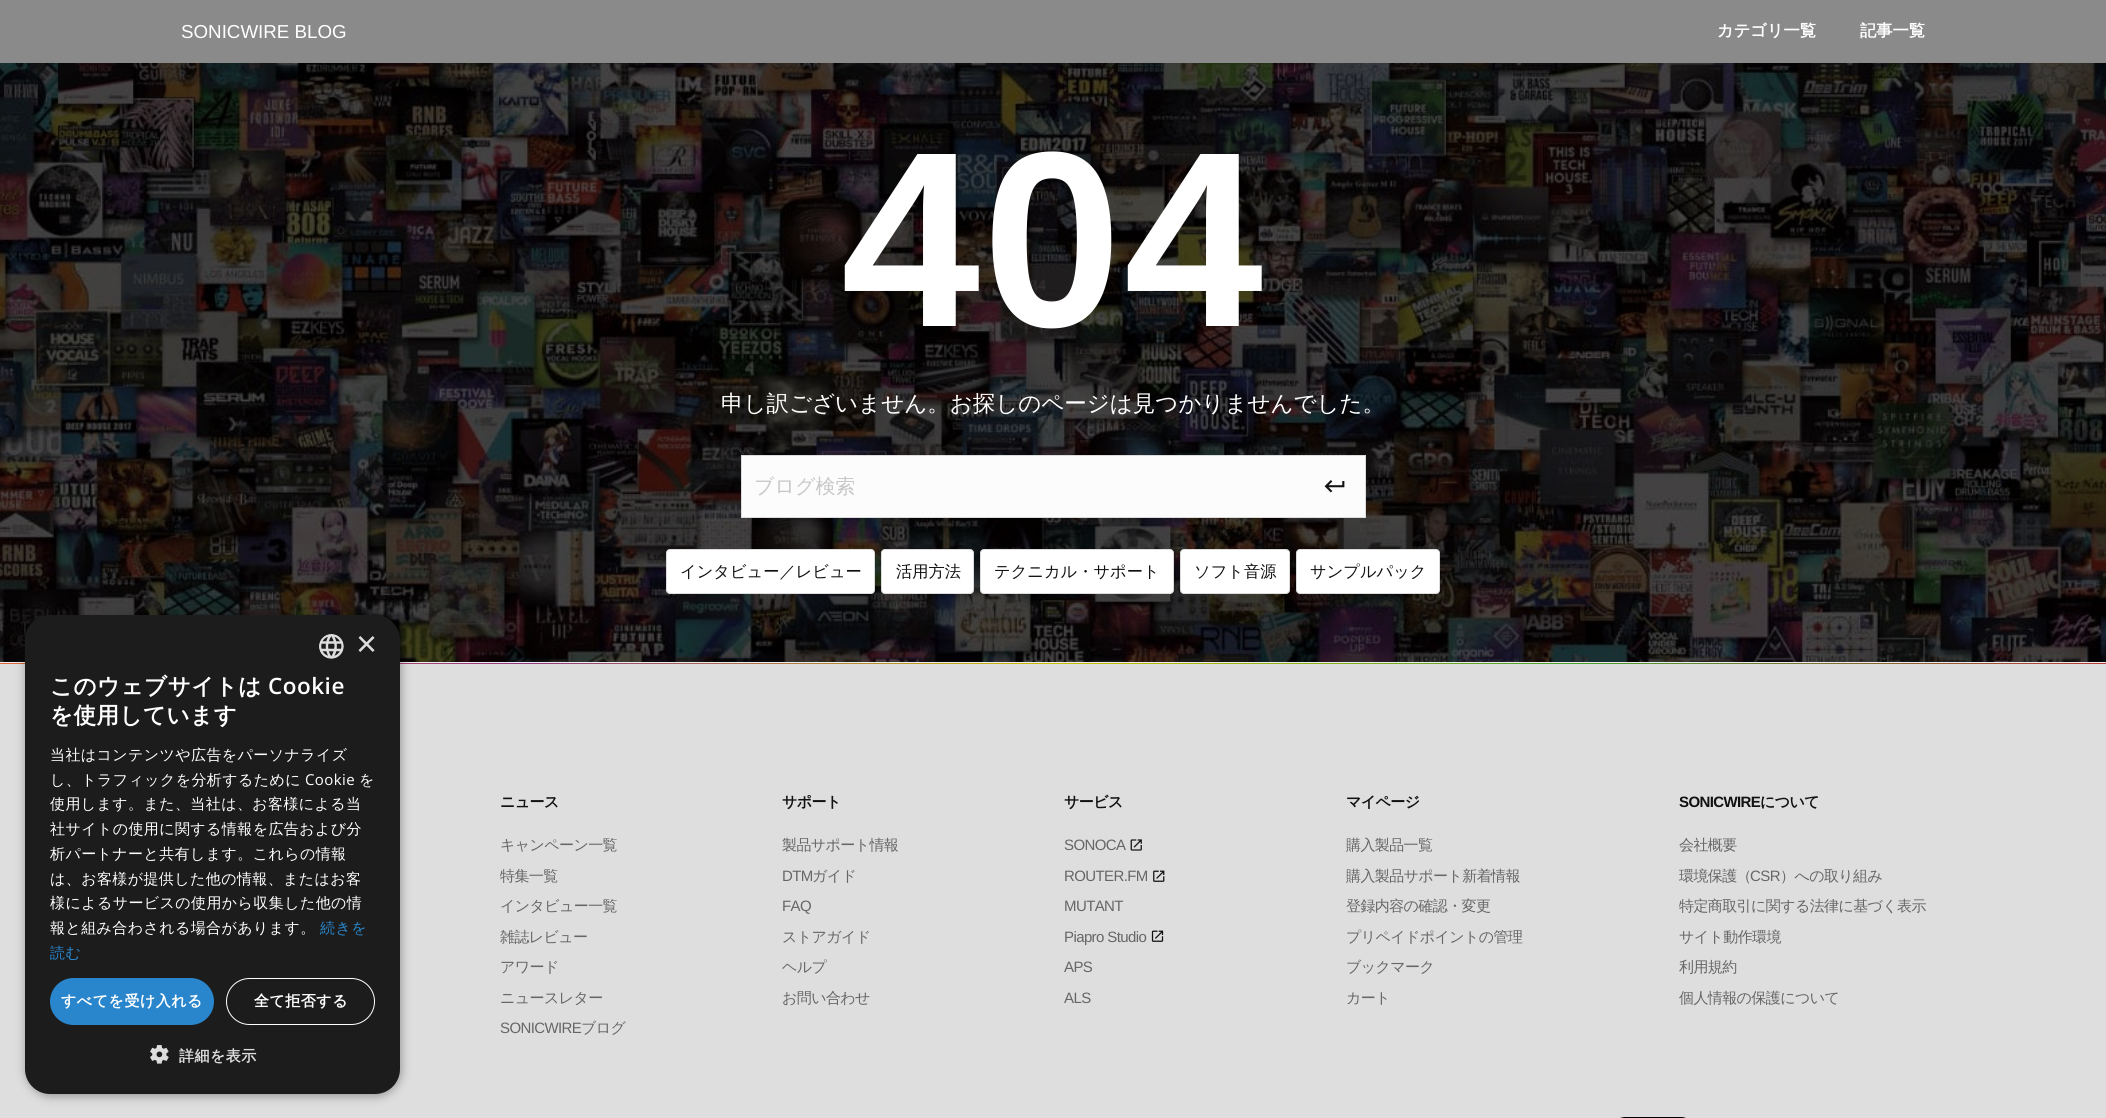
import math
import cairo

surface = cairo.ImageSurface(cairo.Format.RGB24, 2106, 1118)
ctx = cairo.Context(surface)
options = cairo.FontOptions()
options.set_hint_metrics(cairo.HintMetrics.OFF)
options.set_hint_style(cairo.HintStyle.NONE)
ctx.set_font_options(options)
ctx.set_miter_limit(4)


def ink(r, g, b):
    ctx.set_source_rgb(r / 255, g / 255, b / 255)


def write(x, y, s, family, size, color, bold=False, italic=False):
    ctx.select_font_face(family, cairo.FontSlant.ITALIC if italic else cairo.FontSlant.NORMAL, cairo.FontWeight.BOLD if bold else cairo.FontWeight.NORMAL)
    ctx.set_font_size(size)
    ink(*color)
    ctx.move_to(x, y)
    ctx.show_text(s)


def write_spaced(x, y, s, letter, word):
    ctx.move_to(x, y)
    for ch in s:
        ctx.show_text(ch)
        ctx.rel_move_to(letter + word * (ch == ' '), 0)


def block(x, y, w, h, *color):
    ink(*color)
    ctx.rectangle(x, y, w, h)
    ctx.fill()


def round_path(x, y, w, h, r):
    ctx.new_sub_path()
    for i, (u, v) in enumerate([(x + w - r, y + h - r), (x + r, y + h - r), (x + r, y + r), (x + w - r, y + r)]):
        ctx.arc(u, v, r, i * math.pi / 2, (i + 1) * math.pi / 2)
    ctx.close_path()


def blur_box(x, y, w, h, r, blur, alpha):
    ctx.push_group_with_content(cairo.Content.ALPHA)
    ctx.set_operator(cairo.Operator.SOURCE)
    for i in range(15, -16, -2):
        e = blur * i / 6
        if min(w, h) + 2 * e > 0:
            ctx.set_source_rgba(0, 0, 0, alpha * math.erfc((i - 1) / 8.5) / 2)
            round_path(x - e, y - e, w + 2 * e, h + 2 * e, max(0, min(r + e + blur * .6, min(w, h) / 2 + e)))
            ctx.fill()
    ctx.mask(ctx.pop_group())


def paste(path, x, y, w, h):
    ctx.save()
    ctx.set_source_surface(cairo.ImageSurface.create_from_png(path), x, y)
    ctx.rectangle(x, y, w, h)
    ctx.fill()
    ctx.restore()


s1 = dict(family="Liberation Sans", size=18.75, color=(255, 255, 255))
s2 = dict(family="WenQuanYi Zen Hei", size=16.25, color=(255, 255, 255), bold=True)
s3 = dict(family="WenQuanYi Zen Hei Medium", size=22.5, color=(255, 255, 255))
s4 = dict(family="WenQuanYi Zen Hei Medium", size=20, color=(199, 199, 199))
s5 = dict(family="WenQuanYi Zen Hei Medium", size=16.25, color=(17, 17, 17))
s6 = dict(family="Liberation Sans", size=36, color=(221, 221, 221))

ink(235, 235, 235)
ctx.paint()
block(0, 0, 2106, 63, 138, 138, 138)
write(181, 38, "SONICWIRE BLOG", **s1)
write(1717, 36, "カテゴリ一覧", **s2)
write(1860, 36, "記事一覧", **s2)
paste("pic1.png", 0, 63, 2106, 599)
ctx.select_font_face("Liberation Sans", cairo.FontSlant.NORMAL, cairo.FontWeight.BOLD)
ctx.set_font_size(250)
write_spaced(841, 326, "404", 2.5, 0)
write(721, 411, "申し訳ございません。お探しのページは見つかりませんでした。", **s3)
ink(252, 252, 252)
ctx.rectangle(741.5, 455.5, 624, 62)
ctx.fill_preserve()
ink(220, 220, 220)
ctx.set_line_width(1)
ctx.stroke()
write(754, 493, "ブログ検索", **s4)
paste("pic2.png", 1324, 480, 21, 13)
ink(255, 255, 255)
round_path(666.5, 549.5, 208, 44, 3.5)
ctx.fill_preserve()
ink(220, 220, 220)
ctx.stroke()
write(680, 577, "インタビュー／レビュー", **s5)
ink(255, 255, 255)
round_path(881.5, 549.5, 92, 44, 3.5)
ctx.fill_preserve()
ink(220, 220, 220)
ctx.stroke()
write(896, 577, "活用方法", **s5)
ink(255, 255, 255)
round_path(980.5, 549.5, 193, 44, 3.5)
ctx.fill_preserve()
ink(220, 220, 220)
ctx.stroke()
write(994, 577, "テクニカル・サポート", **s5)
ink(255, 255, 255)
round_path(1180.5, 549.5, 109, 44, 3.5)
ctx.fill_preserve()
ink(220, 220, 220)
ctx.stroke()
write(1194, 577, "ソフト音源", **s5)
ink(255, 255, 255)
round_path(1296.5, 549.5, 143, 44, 3.5)
ctx.fill_preserve()
ink(220, 220, 220)
ctx.stroke()
write(1310, 577, "サンプルパック", **s5)
block(0, 664, 2106, 454, 222, 222, 222)
gradient = cairo.LinearGradient(0, 663, 2106, 663)
gradient.add_color_stop_rgba(0, 0.882, 0.408, 0.22, 1)
gradient.add_color_stop_rgba(0.25, 0.58, 0.224, 0.514, 1)
gradient.add_color_stop_rgba(0.5, 0.796, 0.745, 0, 1)
gradient.add_color_stop_rgba(0.75, 0.278, 0.631, 0.176, 1)
gradient.add_color_stop_rgba(1, 0.733, 0.227, 0.212, 1)
ctx.set_source(gradient)
ctx.rectangle(0, 663, 2106, 1)
ctx.fill()
ctx.select_font_face("WenQuanYi Zen Hei", cairo.FontSlant.NORMAL, cairo.FontWeight.BOLD)
ctx.set_font_size(15)
ink(17, 17, 17)
write_spaced(500, 807, "ニュース", -0.6, 0)
ctx.select_font_face("WenQuanYi Zen Hei Medium")
ink(102, 102, 102)
write_spaced(500, 850, "キャンペーン一覧", -0.6, 0)
write_spaced(500, 881, "特集一覧", -0.6, 0)
write_spaced(500, 911, "インタビュー一覧", -0.6, 0)
write_spaced(500, 942, "雑誌レビュー", -0.6, 0)
write_spaced(500, 972, "アワード", -0.6, 0)
write_spaced(500, 1003, "ニュースレター", -0.6, 0)
ctx.select_font_face("Liberation Sans")
write_spaced(500, 1033, "SONICWIRE", -0.6, 0)
ctx.select_font_face("WenQuanYi Zen Hei Medium")
write_spaced(581, 1033, "ブログ", -0.6, 0)
ctx.select_font_face("WenQuanYi Zen Hei", cairo.FontSlant.NORMAL, cairo.FontWeight.BOLD)
ink(17, 17, 17)
write_spaced(782, 807, "サポート", -0.6, 0)
ctx.select_font_face("WenQuanYi Zen Hei Medium")
ink(102, 102, 102)
write_spaced(782, 850, "製品サポート情報", -0.6, 0)
ctx.select_font_face("Liberation Sans")
write_spaced(782, 881, "DTM", -0.6, 0)
ctx.select_font_face("WenQuanYi Zen Hei Medium")
write_spaced(812, 881, "ガイド", -0.6, 0)
ctx.select_font_face("Liberation Sans")
write_spaced(782, 911, "FAQ", -0.6, 0)
ctx.select_font_face("WenQuanYi Zen Hei Medium")
write_spaced(782, 942, "ストアガイド", -0.6, 0)
write_spaced(782, 972, "ヘルプ", -0.6, 0)
write_spaced(782, 1003, "お問い合わせ", -0.6, 0)
ctx.select_font_face("WenQuanYi Zen Hei", cairo.FontSlant.NORMAL, cairo.FontWeight.BOLD)
ink(17, 17, 17)
write_spaced(1064, 807, "サービス", -0.6, 0)
ctx.select_font_face("Liberation Sans")
ink(102, 102, 102)
write_spaced(1064, 850, "SONOCA", -0.6, 0)
paste("pic3.png", 1130, 839, 12, 12)
write_spaced(1064, 881, "ROUTER.FM", -0.6, 0)
paste("pic4.png", 1153, 870, 12, 12)
write_spaced(1064, 911, "MUTANT", -0.6, 0)
write_spaced(1064, 942, "Piapro Studio", -0.6, 0)
paste("pic5.png", 1151, 930, 13, 12)
write_spaced(1064, 972, "APS", -0.6, 0)
write_spaced(1064, 1003, "ALS", -0.6, 0)
ctx.select_font_face("WenQuanYi Zen Hei", cairo.FontSlant.NORMAL, cairo.FontWeight.BOLD)
ink(17, 17, 17)
write_spaced(1346, 807, "マイページ", -0.6, 0)
ctx.select_font_face("WenQuanYi Zen Hei Medium")
ink(102, 102, 102)
write_spaced(1346, 850, "購入製品一覧", -0.6, 0)
write_spaced(1346, 881, "購入製品サポート新着情報", -0.6, 0)
write_spaced(1346, 911, "登録内容の確認・変更", -0.6, 0)
write_spaced(1346, 942, "プリペイドポイントの管理", -0.6, 0)
write_spaced(1346, 972, "ブックマーク", -0.6, 0)
write_spaced(1346, 1003, "カート", -0.6, 0)
ctx.select_font_face("Liberation Sans", cairo.FontSlant.NORMAL, cairo.FontWeight.BOLD)
ink(17, 17, 17)
write_spaced(1679, 807, "SONICWIRE", -0.6, 0)
ctx.select_font_face("WenQuanYi Zen Hei", cairo.FontSlant.NORMAL, cairo.FontWeight.BOLD)
write_spaced(1760, 807, "について", -0.6, 0)
ctx.select_font_face("WenQuanYi Zen Hei Medium")
ink(102, 102, 102)
write_spaced(1679, 850, "会社概要", -0.6, 0)
write_spaced(1679, 881, "環境保護（", -0.6, 0)
ctx.select_font_face("Liberation Sans")
write_spaced(1750, 881, "CSR", -0.6, 0)
ctx.select_font_face("WenQuanYi Zen Hei Medium")
write_spaced(1780, 881, "）への取り組み", -0.6, 0)
write_spaced(1679, 911, "特定商取引に関する法律に基づく表示", -0.6, 0)
write_spaced(1679, 942, "サイト動作環境", -0.6, 0)
write_spaced(1679, 972, "利用規約", -0.6, 0)
write_spaced(1679, 1003, "個人情報の保護について", -0.6, 0)
paste("pic6.png", 1620, 1117, 66, 1)
ink(0, 0, 0)
blur_box(26, 618, 375, 478, 25, 5, 0.35)
ink(28, 28, 28)
round_path(25, 615, 375, 479, 25)
ctx.fill()
paste("pic7.png", 319, 634, 25, 25)
write(356, 656, "×", **s6)
ctx.select_font_face("WenQuanYi Zen Hei", cairo.FontSlant.NORMAL, cairo.FontWeight.BOLD)
ctx.set_font_size(22.5)
ink(255, 255, 255)
write_spaced(50, 694, "このウェブサイトは", 0.5, 0)
ctx.select_font_face("Open Sans SemiBold")
write_spaced(268, 694, "Cookie", 0.5, 0)
ctx.select_font_face("WenQuanYi Zen Hei", cairo.FontSlant.NORMAL, cairo.FontWeight.BOLD)
write_spaced(50, 723, "を使用しています", 0.5, 0)
ctx.select_font_face("WenQuanYi Zen Hei Medium")
ctx.set_font_size(15)
write_spaced(50, 760, "当社はコンテンツや広告をパーソナライズ", 0.4, 0)
write_spaced(50, 785, "し、トラフィックを分析するために", 0.4, 0)
ctx.select_font_face("Open Sans")
write_spaced(305, 785, "Cookie", 0.4, 0)
ctx.select_font_face("WenQuanYi Zen Hei Medium")
write_spaced(359, 785, "を", 0.4, 0)
write_spaced(50, 809, "使用します。また、当社は、お客様による当", 0.4, 0)
write_spaced(50, 834, "社サイトの使用に関する情報を広告および分", 0.4, 0)
write_spaced(50, 859, "析パートナーと共有します。これらの情報", 0.4, 0)
write_spaced(50, 884, "は、お客様が提供した他の情報、またはお客", 0.4, 0)
write_spaced(50, 908, "様によるサービスの使用から収集した他の情", 0.4, 0)
write_spaced(50, 933, "報と組み合わされる場合があります。", 0.4, 0)
ink(41, 134, 204)
write_spaced(320, 933, "続きを", 0.4, 0)
write_spaced(50, 958, "読む", 0.4, 0)
round_path(50, 978, 164, 47, 23.5)
ctx.fill()
ctx.select_font_face("WenQuanYi Zen Hei", cairo.FontSlant.NORMAL, cairo.FontWeight.BOLD)
ink(255, 255, 255)
write_spaced(61, 1006, "すべてを受け入れる", 0.5, 0)
round_path(226.5, 978.5, 148, 46, 23)
ctx.stroke()
write_spaced(254, 1006, "全て拒否する", 0.5, 0)
paste("pic8.png", 150, 1045, 19, 19)
ink(221, 221, 221)
write_spaced(179, 1061, "詳細を表示", 0.5, 0)
surface.write_to_png("screenshot.png")
